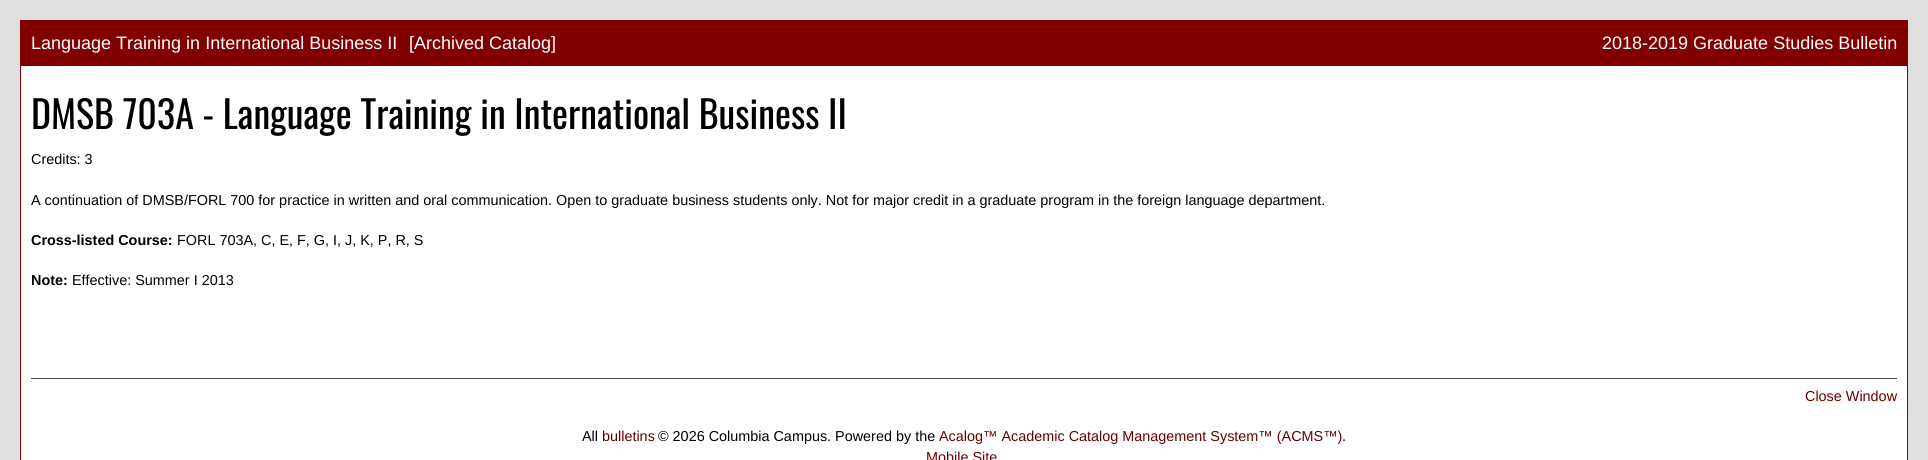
import math
import cairo

surface = cairo.ImageSurface(cairo.Format.RGB24, 1928, 460)
ctx = cairo.Context(surface)
options = cairo.FontOptions()
options.set_hint_metrics(cairo.HintMetrics.OFF)
options.set_hint_style(cairo.HintStyle.NONE)
ctx.set_font_options(options)
ctx.set_miter_limit(4)


def ink(r, g, b):
    ctx.set_source_rgb(r / 255, g / 255, b / 255)


def write(x, y, s, family, size, color, bold=False, italic=False):
    ctx.select_font_face(family, cairo.FontSlant.ITALIC if italic else cairo.FontSlant.NORMAL, cairo.FontWeight.BOLD if bold else cairo.FontWeight.NORMAL)
    ctx.set_font_size(size)
    ink(*color)
    ctx.move_to(x, y)
    ctx.show_text(s)


def block(x, y, w, h, *color):
    ink(*color)
    ctx.rectangle(x, y, w, h)
    ctx.fill()


s1 = dict(family="Liberation Sans", size=18, color=(255, 255, 255))
s2 = dict(family="Oswald", size=38, color=(0, 0, 0))
s3 = dict(family="Liberation Sans", size=14.4, color=(0, 0, 0))
s4 = dict(family="Liberation Sans", size=14.4, color=(0, 0, 0), bold=True)
s5 = dict(family="Liberation Sans", size=14.4, color=(102, 0, 0))

ink(223, 223, 223)
ctx.paint()
block(21, 66, 1886, 394, 255, 255, 255)
ctx.rectangle(20.5, 20.5, 1887, 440)
ink(128, 0, 0)
ctx.set_line_width(1)
ctx.stroke()
block(21, 21, 1886, 45, 128, 0, 0)
write(31, 49, "Language Training in International Business II", **s1)
write(409, 49, "[Archived Catalog]", **s1)
write(1602, 49, "2018-2019 Graduate Studies Bulletin", **s1)
write(31, 129, "DMSB 703A - Language Training in International Business II", **s2)
write(31, 164, "Credits: 3", **s3)
write(31, 205, "A continuation of DMSB/FORL 700 for practice in written and oral communication. Open to graduate business students only. Not for major credit in a graduate program in the foreign language department.", **s3)
write(31, 245, "Cross-listed Course:", **s4)
write(177, 245, "FORL 703A, C, E, F, G, I, J, K, P, R, S", **s3)
write(31, 285, "Note:", **s4)
write(72, 285, "Effective: Summer I 2013", **s3)
block(31, 378, 1866, 1, 68, 68, 68)
write(1805, 401, "Close Window", **s5)
write(582, 441, "All", **s3)
write(602, 441, "bulletins", **s5)
write(658, 441, "© 2026 Columbia Campus. Powered by the", **s3)
write(939, 441, "Acalog™ Academic Catalog Management System™ (ACMS™)", **s5)
write(1342, 441, ".", **s3)
write(926, 462, "Mobile Site", **s5)
surface.write_to_png("screenshot.png")
